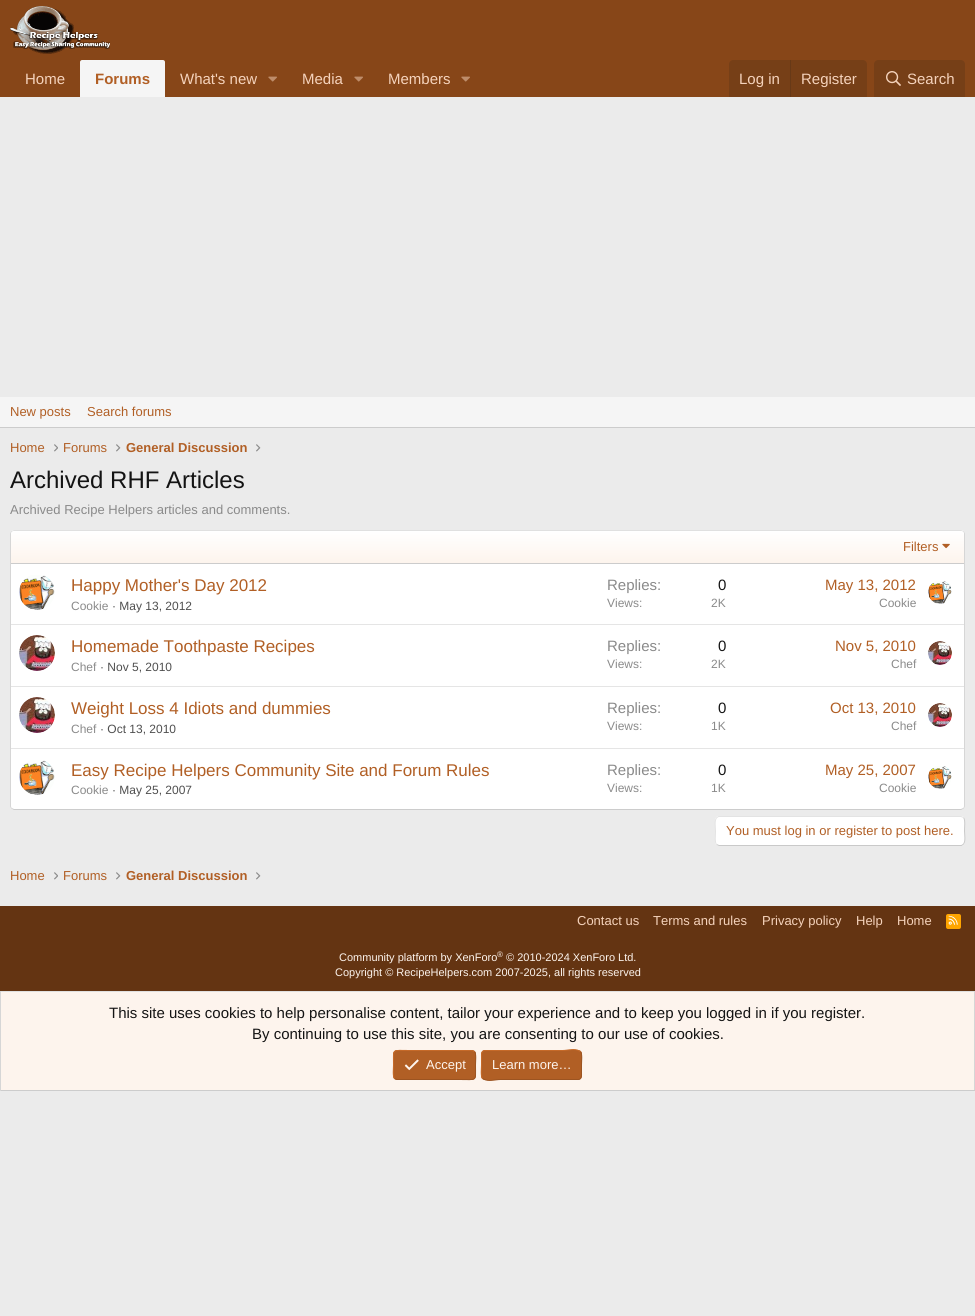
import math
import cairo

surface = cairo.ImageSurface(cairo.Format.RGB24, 975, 1316)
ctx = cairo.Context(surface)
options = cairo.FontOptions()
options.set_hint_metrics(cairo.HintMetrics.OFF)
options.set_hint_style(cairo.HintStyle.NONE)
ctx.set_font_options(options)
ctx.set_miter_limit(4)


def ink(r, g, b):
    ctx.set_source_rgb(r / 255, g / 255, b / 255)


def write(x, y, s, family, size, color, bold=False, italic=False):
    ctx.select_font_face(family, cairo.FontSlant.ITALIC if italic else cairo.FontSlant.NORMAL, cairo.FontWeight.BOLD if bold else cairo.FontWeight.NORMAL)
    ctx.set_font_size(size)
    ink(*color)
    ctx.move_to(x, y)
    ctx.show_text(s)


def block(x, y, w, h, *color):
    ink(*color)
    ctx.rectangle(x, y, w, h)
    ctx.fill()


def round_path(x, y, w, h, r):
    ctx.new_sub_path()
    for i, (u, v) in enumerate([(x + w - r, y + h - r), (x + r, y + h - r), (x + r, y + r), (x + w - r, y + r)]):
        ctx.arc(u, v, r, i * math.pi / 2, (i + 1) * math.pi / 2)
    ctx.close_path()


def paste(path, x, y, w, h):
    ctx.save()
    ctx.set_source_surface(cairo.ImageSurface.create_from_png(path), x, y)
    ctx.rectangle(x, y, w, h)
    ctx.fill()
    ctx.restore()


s1 = dict(family="Liberation Sans", size=15, color=(245, 211, 188))
s2 = dict(family="Liberation Sans", size=15, color=(177, 95, 37), bold=True)
s3 = dict(family="Liberation Sans", size=13, color=(177, 95, 37))
s4 = dict(family="Liberation Sans", size=13, color=(177, 95, 37), bold=True)
s5 = dict(family="Liberation Sans", size=24, color=(20, 20, 20))
s6 = dict(family="Liberation Sans", size=13, color=(138, 138, 138))
s7 = dict(family="Liberation Sans", size=17, color=(177, 95, 37))
s8 = dict(family="Liberation Sans", size=12, color=(138, 138, 138))
s9 = dict(family="Liberation Sans", size=12, color=(79, 79, 79))
s10 = dict(family="Liberation Sans", size=15, color=(138, 138, 138))
s11 = dict(family="Liberation Sans", size=15, color=(20, 20, 20))
s12 = dict(family="Liberation Sans", size=15, color=(177, 95, 37))
s13 = dict(family="Liberation Sans", size=13, color=(245, 211, 188))
s14 = dict(family="Liberation Sans", size=11, color=(253, 244, 237))
s15 = dict(family="Liberation Sans", size=8, color=(253, 244, 237))
s16 = dict(family="Liberation Sans", size=13, color=(253, 244, 237))

ink(235, 235, 235)
ctx.paint()
block(0, 0, 975, 97, 135, 70, 24)
paste("pic1.png", 10, 6, 100, 48)
write(25, 84, "Home", **s1)
ink(245, 245, 245)
ctx.new_path()
ctx.move_to(82, 60)
ctx.line_to(163, 60)
ctx.curve_to(164, 60, 165, 61, 165, 62)
ctx.line_to(165, 97)
ctx.line_to(80, 97)
ctx.line_to(80, 62)
ctx.curve_to(80, 61, 81, 60, 82, 60)
ctx.close_path()
ctx.fill()
write(95, 84, "Forums", **s2)
write(180, 84, "What's new", **s1)
paste("pic2.png", 268, 76, 9, 6)
write(302, 84, "Media", **s1)
paste("pic2.png", 354, 76, 9, 6)
write(388, 84, "Members", **s1)
paste("pic2.png", 461, 76, 9, 6)
ink(118, 63, 23)
ctx.new_path()
ctx.move_to(733, 60)
ctx.line_to(863, 60)
ctx.curve_to(865, 60, 867, 62, 867, 64)
ctx.line_to(867, 97)
ctx.line_to(729, 97)
ctx.line_to(729, 64)
ctx.curve_to(729, 62, 731, 60, 733, 60)
ctx.close_path()
ctx.fill()
write(739, 84, "Log in", **s1)
block(790, 60, 1, 37, 103, 57, 23)
write(801, 84, "Register", **s1)
ink(118, 63, 23)
ctx.new_path()
ctx.move_to(878, 60)
ctx.line_to(961, 60)
ctx.curve_to(963, 60, 965, 62, 965, 64)
ctx.line_to(965, 97)
ctx.line_to(874, 97)
ctx.line_to(874, 64)
ctx.curve_to(874, 62, 876, 60, 878, 60)
ctx.close_path()
ctx.fill()
paste("pic3.png", 886, 71, 15, 15)
write(907, 84, "Search", **s1)
block(0, 397, 975, 30, 245, 245, 245)
block(0, 427, 975, 1, 204, 204, 204)
write(10, 416, "New posts", **s3)
write(87, 416, "Search forums", **s3)
write(10, 452, "Home", **s3)
paste("pic4.png", 54, 444, 4, 8)
write(63, 452, "Forums", **s3)
paste("pic5.png", 116, 444, 5, 8)
write(126, 452, "General Discussion", **s4)
paste("pic5.png", 256, 444, 5, 8)
write(10, 488, "Archived RHF Articles", **s5)
write(10, 514, "Archived Recipe Helpers articles and comments.", **s6)
ink(255, 255, 255)
round_path(10, 530, 955, 280, 4)
ctx.fill()
ctx.new_path()
ctx.move_to(11.5, 531.5)
ctx.line_to(14, 530.5)
ctx.line_to(961, 530.5)
ctx.line_to(963.5, 531.5)
ink(224, 224, 224)
ctx.set_line_width(1)
ctx.stroke()
ctx.new_path()
ctx.move_to(963.5, 531.5)
ctx.curve_to(964, 532, 964.5, 533, 964.5, 534)
ctx.line_to(964.5, 806)
ctx.curve_to(964.5, 807, 964, 808, 963.5, 808.5)
ink(214, 214, 214)
ctx.stroke()
ctx.new_path()
ctx.move_to(963.5, 808.5)
ctx.line_to(961, 809.5)
ctx.line_to(14, 809.5)
ctx.line_to(11.5, 808.5)
ink(204, 204, 204)
ctx.stroke()
ctx.new_path()
ctx.move_to(11.5, 808.5)
ctx.curve_to(11, 808, 10.5, 807, 10.5, 806)
ctx.line_to(10.5, 534)
ctx.curve_to(10.5, 533, 11, 532, 11.5, 531.5)
ink(214, 214, 214)
ctx.stroke()
gradient = cairo.LinearGradient(488, 563, 488, 531)
gradient.add_color_stop_rgba(0, 0.992, 0.957, 0.929, 1)
gradient.add_color_stop_rgba(1, 1, 1, 1, 1)
ctx.set_source(gradient)
ctx.new_path()
ctx.move_to(14, 531)
ctx.line_to(961, 531)
ctx.curve_to(962.5, 531, 964, 532.5, 964, 534)
ctx.line_to(964, 563)
ctx.line_to(11, 563)
ctx.line_to(11, 534)
ctx.curve_to(11, 532.5, 12.5, 531, 14, 531)
ctx.close_path()
ctx.fill()
block(11, 563, 953, 1, 204, 204, 204)
write(903, 551, "Filters", **s3)
paste("pic6.png", 942, 543, 8, 6)
paste("pic7.png", 19, 575, 36, 35)
write(71, 591, "Happy Mother's Day 2012", **s7)
write(71, 610, "Cookie", **s8)
write(112, 610, "· May 13, 2012", **s9)
write(607, 590, "Replies:", **s10)
write(718, 590, "0", **s11)
write(607, 607, "Views:", **s8)
write(711, 607, "2K", **s8)
write(825, 590, "May 13, 2012", **s12)
write(879, 607, "Cookie", **s8)
paste("pic8.png", 928, 581, 24, 23)
block(11, 624, 953, 1, 229, 229, 229)
paste("pic9.png", 19, 635, 36, 36)
write(71, 652, "Homemade Toothpaste Recipes", **s7)
write(71, 671, "Chef", **s8)
write(100, 671, "· Nov 5, 2010", **s9)
write(607, 651, "Replies:", **s10)
write(718, 651, "0", **s11)
write(607, 668, "Views:", **s8)
write(711, 668, "2K", **s8)
write(835, 651, "Nov 5, 2010", **s12)
write(891, 668, "Chef", **s8)
paste("pic10.png", 928, 641, 24, 24)
block(11, 686, 953, 1, 229, 229, 229)
paste("pic9.png", 19, 697, 36, 36)
write(71, 714, "Weight Loss 4 Idiots and dummies", **s7)
write(71, 733, "Chef", **s8)
write(100, 733, "· Oct 13, 2010", **s9)
write(607, 713, "Replies:", **s10)
write(718, 713, "0", **s11)
write(607, 730, "Views:", **s8)
write(711, 730, "1K", **s8)
write(830, 713, "Oct 13, 2010", **s12)
write(891, 730, "Chef", **s8)
paste("pic10.png", 928, 703, 24, 24)
block(11, 748, 953, 1, 229, 229, 229)
paste("pic11.png", 19, 760, 36, 35)
write(71, 776, "Easy Recipe Helpers Community Site and Forum Rules", **s7)
write(71, 794, "Cookie", **s8)
write(112, 794, "· May 25, 2007", **s9)
write(607, 775, "Replies:", **s10)
write(718, 775, "0", **s11)
write(607, 792, "Views:", **s8)
write(711, 792, "1K", **s8)
write(825, 775, "May 25, 2007", **s12)
write(879, 792, "Cookie", **s8)
paste("pic8.png", 928, 766, 24, 23)
ink(255, 255, 255)
round_path(715, 816, 250, 30, 4)
ctx.fill()
ctx.new_path()
ctx.move_to(963.5, 817.5)
ctx.curve_to(965.5, 819.5, 964.5, 828, 964.5, 831)
ctx.curve_to(964.5, 834, 966, 842.5, 963, 844.5)
ctx.line_to(961.5, 845.5)
ctx.line_to(719, 845.5)
ctx.line_to(716.5, 844.5)
ink(201, 201, 201)
ctx.stroke()
ctx.new_path()
ctx.move_to(716.5, 844.5)
ctx.curve_to(714.5, 842.5, 715.5, 834, 715.5, 831)
ctx.curve_to(715.5, 828, 714, 819.5, 717, 817.5)
ctx.line_to(718.5, 816.5)
ctx.line_to(961, 816.5)
ctx.line_to(963.5, 817.5)
ink(227, 227, 227)
ctx.stroke()
write(726, 835, "You must log in or register to post here.", **s3)
write(10, 880, "Home", **s3)
paste("pic4.png", 54, 872, 4, 8)
write(63, 880, "Forums", **s3)
paste("pic5.png", 116, 872, 5, 8)
write(126, 880, "General Discussion", **s4)
paste("pic5.png", 256, 872, 5, 8)
block(0, 906, 975, 85, 100, 52, 18)
write(577, 925, "Contact us", **s13)
write(653, 925, "Terms and rules", **s13)
write(762, 925, "Privacy policy", **s13)
write(856, 925, "Help", **s13)
write(897, 925, "Home", **s13)
ink(255, 165, 0)
round_path(946, 914, 15, 15, 2)
ctx.fill()
paste("pic12.png", 948, 915, 10, 10)
write(339, 961, "Community platform by XenForo", **s14)
write(497, 957, "®", **s15)
write(506, 961, "© 2010-2024 XenForo Ltd.", **s14)
write(335, 976, "Copyright © RecipeHelpers.com 2007-2025, all rights reserved", **s14)
block(1, 992, 973, 98, 253, 244, 237)
block(0, 991, 975, 1, 224, 224, 224)
block(974, 991, 1, 100, 214, 214, 214)
block(0, 1090, 975, 1, 204, 204, 204)
block(0, 991, 1, 100, 214, 214, 214)
write(109, 1018, "This site uses cookies to help personalise content, tailor your experience and to keep you logged in if you register.", **s11)
write(252, 1039, "By continuing to use this site, you are consenting to our use of cookies.", **s11)
ink(177, 95, 37)
round_path(393, 1050, 83, 30, 4)
ctx.fill()
ctx.new_path()
ctx.move_to(474.5, 1051.5)
ctx.curve_to(476.5, 1053.5, 475.5, 1062, 475.5, 1065)
ctx.curve_to(475.5, 1082, 477.5, 1079.5, 459.5, 1079.5)
ctx.line_to(397, 1079.5)
ctx.line_to(394.5, 1078.5)
ink(156, 84, 33)
ctx.stroke()
ctx.new_path()
ctx.move_to(394.5, 1078.5)
ctx.curve_to(392.5, 1076.5, 393.5, 1068, 393.5, 1065)
ctx.curve_to(393.5, 1048, 391.5, 1050.5, 409.5, 1050.5)
ctx.line_to(472, 1050.5)
ctx.line_to(474.5, 1051.5)
ink(198, 106, 41)
ctx.stroke()
paste("pic13.png", 404, 1059, 15, 12)
write(426, 1069, "Accept", **s16)
ink(177, 95, 37)
round_path(481, 1050, 101, 30, 4)
ctx.fill()
ctx.new_path()
ctx.move_to(580.5, 1051.5)
ctx.curve_to(582.5, 1053.5, 581.5, 1062, 581.5, 1065)
ctx.line_to(581.5, 1072.5)
ctx.curve_to(581.5, 1075, 582, 1079.5, 578, 1079.5)
ctx.line_to(500.5, 1079.5)
ctx.curve_to(495, 1079.5, 488.5, 1082, 483.5, 1079)
ctx.line_to(482.5, 1078.5)
ink(156, 84, 33)
ctx.stroke()
ctx.new_path()
ctx.move_to(482.5, 1078.5)
ctx.curve_to(480.5, 1076.5, 481.5, 1068, 481.5, 1065)
ctx.line_to(481.5, 1057.5)
ctx.curve_to(481.5, 1055, 481, 1050.5, 485, 1050.5)
ctx.line_to(562.5, 1050.5)
ctx.curve_to(568, 1050.5, 574.5, 1048, 579.5, 1051)
ctx.line_to(580.5, 1051.5)
ink(198, 106, 41)
ctx.stroke()
write(492, 1069, "Learn more…", **s16)
surface.write_to_png("screenshot.png")
